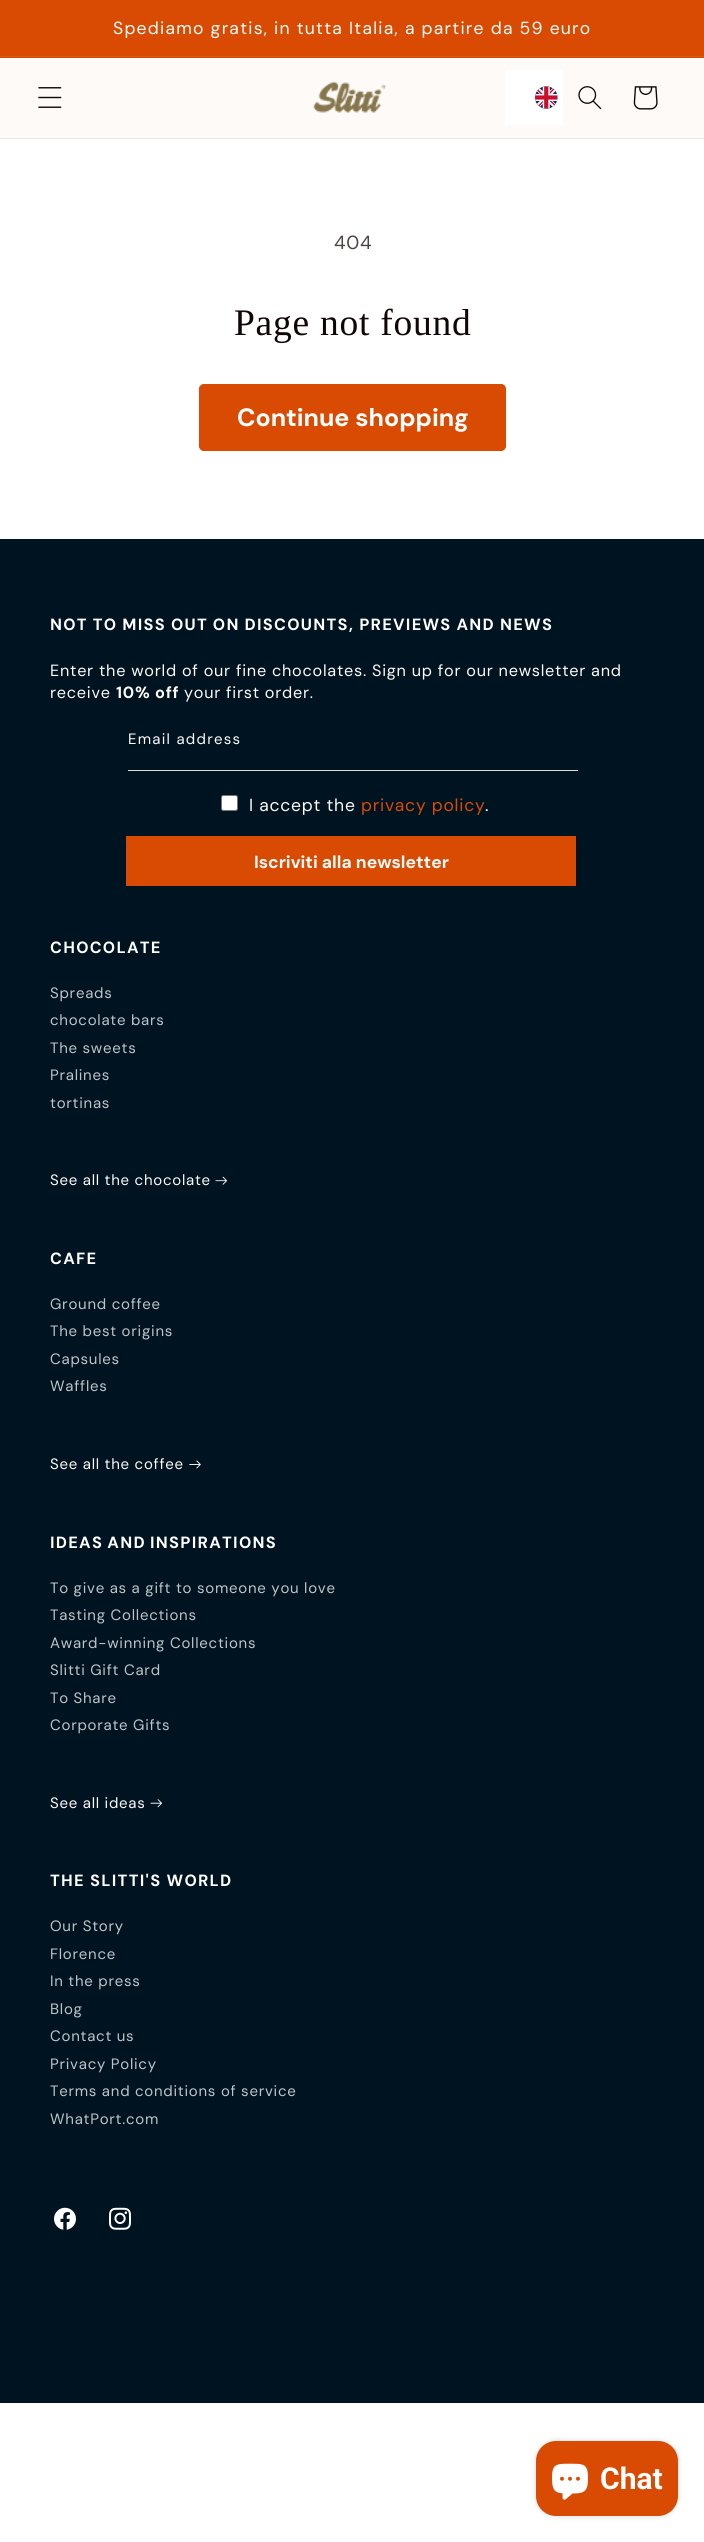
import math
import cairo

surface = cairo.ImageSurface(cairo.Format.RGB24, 704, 2542)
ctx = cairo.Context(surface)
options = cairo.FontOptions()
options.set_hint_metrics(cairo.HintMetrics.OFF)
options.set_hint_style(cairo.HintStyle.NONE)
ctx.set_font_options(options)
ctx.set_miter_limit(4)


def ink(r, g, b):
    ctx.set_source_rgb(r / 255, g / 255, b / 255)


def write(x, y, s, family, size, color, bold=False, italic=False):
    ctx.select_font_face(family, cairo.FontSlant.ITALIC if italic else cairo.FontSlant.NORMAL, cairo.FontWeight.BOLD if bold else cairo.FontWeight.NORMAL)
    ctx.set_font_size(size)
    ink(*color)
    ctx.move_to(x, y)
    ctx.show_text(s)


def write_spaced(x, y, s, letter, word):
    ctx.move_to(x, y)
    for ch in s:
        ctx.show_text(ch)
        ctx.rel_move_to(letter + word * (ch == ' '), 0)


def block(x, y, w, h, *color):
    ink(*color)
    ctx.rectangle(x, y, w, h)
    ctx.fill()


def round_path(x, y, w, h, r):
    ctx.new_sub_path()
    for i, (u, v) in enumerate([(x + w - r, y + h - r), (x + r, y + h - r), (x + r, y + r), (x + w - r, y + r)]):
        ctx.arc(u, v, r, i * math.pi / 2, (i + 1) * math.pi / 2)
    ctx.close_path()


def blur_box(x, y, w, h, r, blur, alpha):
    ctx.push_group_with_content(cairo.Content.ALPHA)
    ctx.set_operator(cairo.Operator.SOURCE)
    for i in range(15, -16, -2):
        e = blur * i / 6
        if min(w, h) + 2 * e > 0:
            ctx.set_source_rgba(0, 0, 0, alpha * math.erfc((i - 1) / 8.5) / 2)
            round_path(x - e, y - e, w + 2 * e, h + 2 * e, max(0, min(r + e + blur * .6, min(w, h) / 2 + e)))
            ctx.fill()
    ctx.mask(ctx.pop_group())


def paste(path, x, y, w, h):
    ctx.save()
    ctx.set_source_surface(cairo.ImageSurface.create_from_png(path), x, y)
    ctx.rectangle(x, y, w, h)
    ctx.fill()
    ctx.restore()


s1 = dict(family="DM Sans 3", size=25, color=(255, 255, 255), bold=True)
s2 = dict(family="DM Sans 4", size=17.5, color=(253, 250, 247), bold=True)
s3 = dict(family="Roboto", size=30, color=(255, 255, 255), bold=True)

ink(255, 255, 255)
ctx.paint()
block(0, 0, 704, 58, 217, 75, 3)
block(0, 56, 704, 1, 220, 89, 23)
ctx.select_font_face("DM Sans")
ctx.set_font_size(17.5)
ink(255, 255, 255)
write_spaced(113, 34, "Spediamo gratis, in tutta Italia, a partire da 59 euro", 1.25, 0)
block(0, 58, 704, 80, 254, 250, 248)
block(0, 138, 704, 1, 235, 230, 229)
paste("pic1.png", 38, 87, 24, 21)
paste("pic2.png", 313, 81, 73, 32)
block(505, 70, 58, 55, 255, 255, 255)
paste("pic3.png", 535, 86, 23, 23)
paste("pic4.png", 578, 86, 24, 24)
paste("pic5.png", 633, 86, 25, 24)
ctx.set_font_size(19)
ink(77, 68, 68)
write_spaced(334, 249, "404", 0.75, 0)
ctx.select_font_face("Liberation Serif")
ctx.set_font_size(37.5)
ink(17, 6, 5)
write_spaced(234, 335, "Page not found", 0.75, 0)
ink(217, 75, 3)
round_path(199, 384, 307, 67, 5)
ctx.fill()
round_path(199.5, 384.5, 306, 66, 5.5)
ctx.set_line_width(1)
ctx.stroke()
write(237, 426, "Continue shopping", **s1)
block(0, 539, 704, 1864, 0, 19, 33)
ctx.select_font_face("DM Sans", cairo.FontSlant.NORMAL, cairo.FontWeight.BOLD)
ctx.set_font_size(16.25)
ink(255, 255, 255)
write_spaced(50, 630, "NOT TO MISS OUT ON DISCOUNTS, PREVIEWS AND NEWS", 1.25, -0.25)
ctx.select_font_face("DM Sans")
ink(253, 250, 247)
write_spaced(50, 676, "Enter the world of our fine chocolates. Sign up for our newsletter and", 0.75, 0)
write_spaced(50, 698, "receive", 0.75, 0)
ctx.select_font_face("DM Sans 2", cairo.FontSlant.NORMAL, cairo.FontWeight.BOLD)
write_spaced(116, 698, "10% off", 0.75, 0)
ctx.select_font_face("DM Sans")
write_spaced(184, 698, "your first order.", 0.75, 0)
ctx.set_font_size(15)
write_spaced(128, 744, "Email address", 1.25, 0)
block(128, 770, 450, 1, 229, 223, 211)
ink(255, 255, 255)
round_path(221.5, 795.5, 16, 15, 2)
ctx.fill_preserve()
ink(118, 118, 118)
ctx.stroke()
ctx.set_font_size(17.5)
ink(253, 250, 247)
write_spaced(249, 811, "I accept the", 0.75, 0)
ink(217, 75, 3)
write_spaced(361, 811, "privacy policy", 0.75, 0)
ink(253, 250, 247)
write_spaced(485, 811, ".", 0.75, 0)
block(126, 836, 450, 50, 217, 75, 3)
write(254, 868, "Iscriviti alla newsletter", **s2)
ctx.select_font_face("DM Sans", cairo.FontSlant.NORMAL, cairo.FontWeight.BOLD)
ctx.set_font_size(16.25)
ink(255, 255, 255)
write_spaced(50, 953, "CHOCOLATE", 1.25, 0)
ctx.select_font_face("DM Sans")
ctx.set_font_size(15)
ink(191, 196, 200)
write_spaced(50, 998, "Spreads", 0.75, 0)
write_spaced(50, 1025, "chocolate bars", 0.75, 0)
write_spaced(50, 1053, "The sweets", 0.75, 0)
write_spaced(50, 1080, "Pralines", 0.75, 0)
write_spaced(50, 1108, "tortinas", 0.75, 0)
ink(253, 250, 247)
write_spaced(50, 1185, "See all the chocolate", 0.75, 0)
paste("pic6.png", 215, 1176, 12, 9)
ctx.select_font_face("DM Sans", cairo.FontSlant.NORMAL, cairo.FontWeight.BOLD)
ctx.set_font_size(16.25)
ink(255, 255, 255)
write_spaced(50, 1264, "CAFE", 1.25, 0)
ctx.select_font_face("DM Sans")
ctx.set_font_size(15)
ink(191, 196, 200)
write_spaced(50, 1309, "Ground coffee", 0.75, 0)
write_spaced(50, 1336, "The best origins", 0.75, 0)
write_spaced(50, 1364, "Capsules", 0.75, 0)
write_spaced(50, 1391, "Waffles", 0.75, 0)
ink(253, 250, 247)
write_spaced(50, 1469, "See all the coffee", 0.75, 0)
paste("pic7.png", 189, 1460, 12, 9)
ctx.select_font_face("DM Sans", cairo.FontSlant.NORMAL, cairo.FontWeight.BOLD)
ctx.set_font_size(16.25)
ink(255, 255, 255)
write_spaced(50, 1548, "IDEAS AND INSPIRATIONS", 1.25, -1)
ctx.select_font_face("DM Sans")
ctx.set_font_size(15)
ink(191, 196, 200)
write_spaced(50, 1593, "To give as a gift to someone you love", 0.75, 0)
write_spaced(50, 1620, "Tasting Collections", 0.75, 0)
write_spaced(50, 1648, "Award-winning Collections", 0.75, 0)
write_spaced(50, 1675, "Slitti Gift Card", 0.75, 0)
write_spaced(50, 1703, "To Share", 0.75, 0)
write_spaced(50, 1730, "Corporate Gifts", 0.75, 0)
ink(253, 250, 247)
write_spaced(50, 1808, "See all ideas", 0.75, 0)
paste("pic8.png", 150, 1799, 12, 9)
ctx.select_font_face("DM Sans", cairo.FontSlant.NORMAL, cairo.FontWeight.BOLD)
ctx.set_font_size(16.25)
ink(255, 255, 255)
write_spaced(50, 1886, "THE SLITTI'S WORLD", 1.25, 0)
ctx.select_font_face("DM Sans")
ctx.set_font_size(15)
ink(191, 196, 200)
write_spaced(50, 1931, "Our Story", 0.75, 0)
write_spaced(50, 1959, "Florence", 0.75, 0)
write_spaced(50, 1986, "In the press", 0.75, 0)
write_spaced(50, 2014, "Blog", 0.75, 0)
write_spaced(50, 2041, "Contact us", 0.75, 0)
write_spaced(50, 2069, "Privacy Policy", 0.75, 0)
write_spaced(50, 2096, "Terms and conditions of service", 0.75, 0)
write_spaced(50, 2124, "WhatPort.com", 0.75, 0)
paste("pic9.png", 54, 2207, 22, 23)
paste("pic10.png", 109, 2207, 22, 23)
ink(0, 0, 0)
blur_box(536, 2441, 142, 75, 20, 3, 0.15)
ink(217, 75, 3)
round_path(536, 2441, 142, 75, 20)
ctx.fill()
paste("pic11.png", 552, 2463, 36, 37)
write(600, 2489, "Chat", **s3)
surface.write_to_png("screenshot.png")
